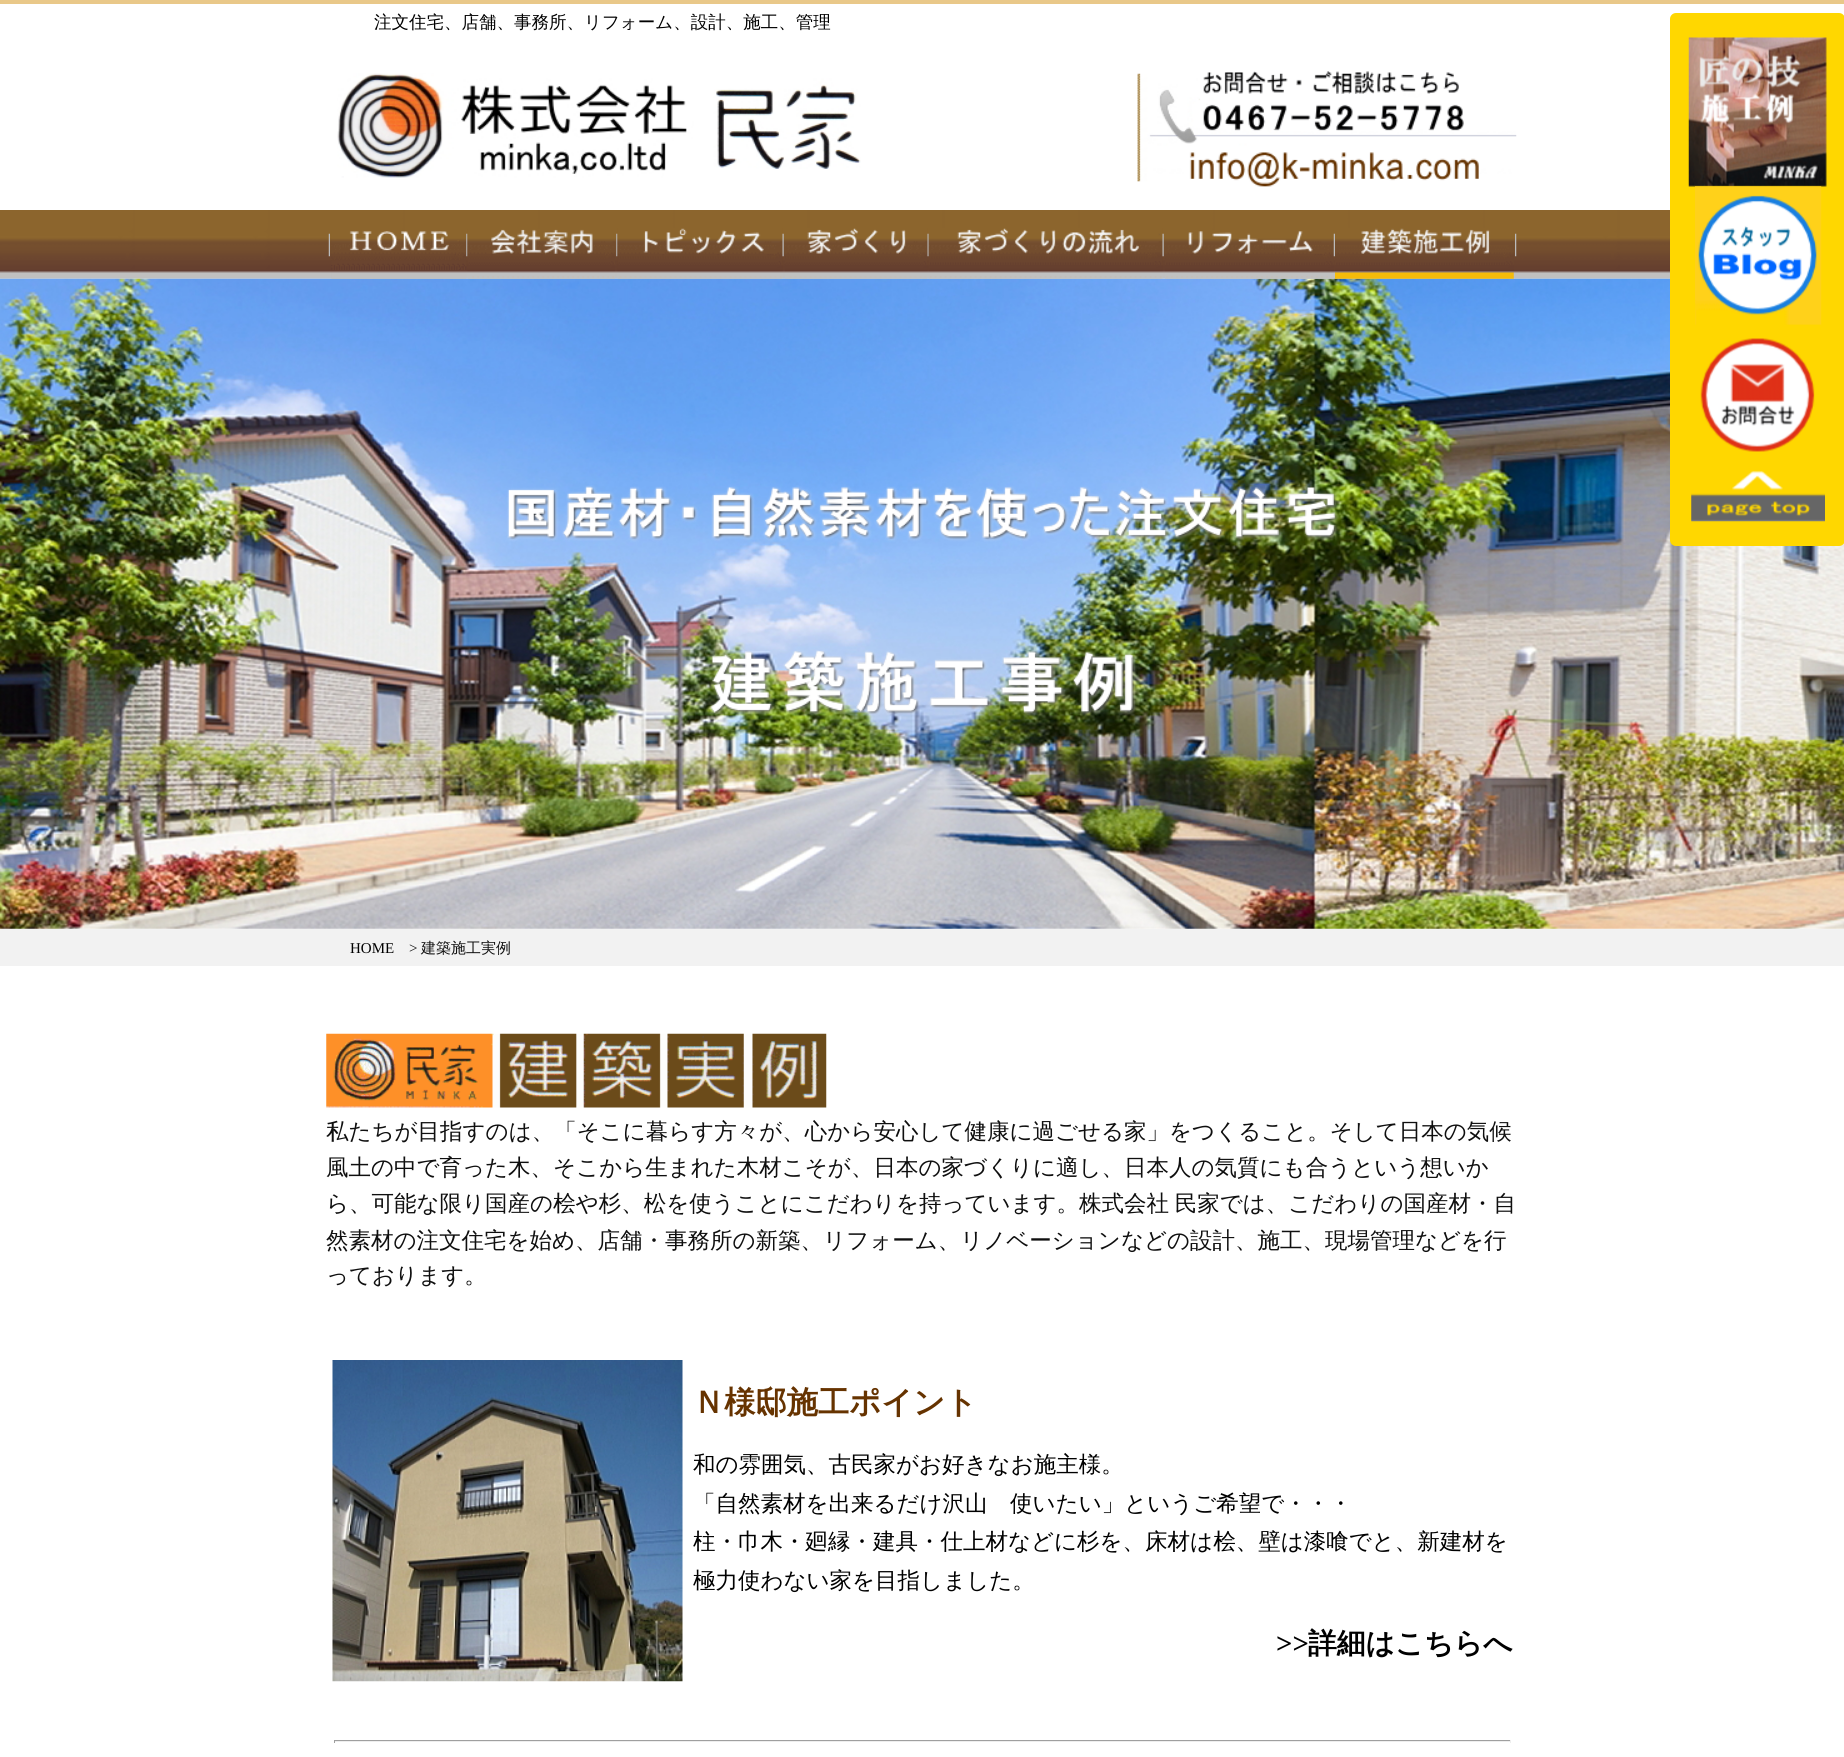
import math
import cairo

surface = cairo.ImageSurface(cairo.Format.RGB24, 1844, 1757)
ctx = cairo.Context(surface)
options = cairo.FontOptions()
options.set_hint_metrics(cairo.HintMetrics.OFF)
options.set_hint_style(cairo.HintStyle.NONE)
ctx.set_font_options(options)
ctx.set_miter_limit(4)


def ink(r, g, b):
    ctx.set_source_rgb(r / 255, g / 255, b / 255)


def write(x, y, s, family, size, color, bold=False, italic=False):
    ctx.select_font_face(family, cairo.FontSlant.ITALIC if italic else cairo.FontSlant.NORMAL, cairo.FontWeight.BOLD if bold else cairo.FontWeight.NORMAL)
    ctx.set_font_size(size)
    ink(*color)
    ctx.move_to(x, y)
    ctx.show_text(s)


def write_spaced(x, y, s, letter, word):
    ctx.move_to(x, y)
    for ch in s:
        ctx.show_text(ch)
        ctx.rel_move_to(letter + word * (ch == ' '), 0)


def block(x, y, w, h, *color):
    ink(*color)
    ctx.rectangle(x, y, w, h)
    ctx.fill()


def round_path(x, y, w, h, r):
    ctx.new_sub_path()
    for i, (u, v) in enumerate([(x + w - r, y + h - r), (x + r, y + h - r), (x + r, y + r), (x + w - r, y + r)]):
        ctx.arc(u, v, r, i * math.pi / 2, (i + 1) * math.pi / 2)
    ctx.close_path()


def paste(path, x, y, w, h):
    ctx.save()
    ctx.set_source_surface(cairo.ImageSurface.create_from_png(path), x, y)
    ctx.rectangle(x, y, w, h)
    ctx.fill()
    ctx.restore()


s1 = dict(family="WenQuanYi Zen Hei Medium", size=17.5, color=(0, 0, 0))
s2 = dict(family="Liberation Serif", size=15, color=(0, 0, 0))
s3 = dict(family="Liberation Serif", size=15, color=(15, 15, 15))
s4 = dict(family="WenQuanYi Zen Hei Medium", size=15, color=(15, 15, 15))
s5 = dict(family="WenQuanYi Zen Hei Medium", size=22.5, color=(15, 15, 15))
s6 = dict(family="WenQuanYi Zen Hei", size=31.25, color=(102, 51, 0), bold=True)
s7 = dict(family="WenQuanYi Zen Hei Medium", size=22.5, color=(0, 0, 0))
s8 = dict(family="Liberation Serif", size=28.75, color=(0, 0, 0), bold=True)
s9 = dict(family="WenQuanYi Zen Hei", size=28.75, color=(0, 0, 0), bold=True)

ink(255, 255, 255)
ctx.paint()
block(0, 0, 1844, 4, 233, 200, 137)
write(374, 28, "注文住宅、店舗、事務所、リフォーム、設計、施工、管理", **s1)
paste("pic1.png", 337, 73, 524, 105)
paste("pic2.png", 1137, 71, 380, 116)
paste("pic3.png", 0, 210, 1670, 69)
paste("pic4.png", 328, 233, 2, 24)
paste("pic19.png", 0, 278, 1844, 651)
paste("pic5.png", 331, 231, 136, 48)
paste("pic12.png", 466, 233, 2, 24)
paste("pic6.png", 467, 229, 148, 50)
paste("pic13.png", 616, 233, 2, 24)
paste("pic7.png", 617, 228, 166, 51)
paste("pic8.png", 785, 228, 143, 51)
paste("pic15.png", 927, 233, 2, 24)
paste("pic9.png", 928, 228, 235, 51)
paste("pic10.png", 1165, 230, 169, 49)
paste("pic11.png", 1335, 228, 179, 51)
paste("pic14.png", 782, 233, 2, 24)
paste("pic16.png", 1162, 233, 2, 24)
paste("pic17.png", 1333, 233, 2, 24)
paste("pic18.png", 1515, 233, 2, 24)
paste("pic20.png", 507, 485, 832, 57)
paste("pic21.png", 709, 650, 428, 67)
block(0, 929, 1844, 37, 242, 242, 242)
write(350, 953, "HOME", **s2)
write(409, 953, ">", **s3)
write(421, 953, "建築施工実例", **s4)
ink(255, 215, 0)
round_path(1670, 13, 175, 533, 6)
ctx.fill()
paste("pic22.png", 1688, 37, 139, 150)
paste("pic23.png", 1695, 186, 127, 139)
paste("pic24.png", 1700, 324, 121, 128)
paste("pic25.png", 1691, 470, 134, 52)
paste("pic26.png", 326, 1033, 501, 75)
write(326, 1139, "私たちが目指すのは、「そこに暮らす方々が、心から安心して健康に過ごせる家」をつくること。そして日本の気候", **s5)
write(326, 1175, "風土の中で育った木、そこから生まれた木材こそが、日本の家づくりに適し、日本人の気質にも合うという想いか", **s5)
write(326, 1211, "ら、可能な限り国産の桧や杉、松を使うことにこだわりを持っています。", **s5)
write_spaced(1079, 1211, "株式会社 民家では、こだわりの国産材・自", 0, -1)
write(326, 1248, "然素材の注文住宅を始め、店舗・事務所の新築、リフォーム、リノベーションなどの設計、施工、現場管理などを行", **s5)
write(326, 1283, "っております。", **s5)
paste("pic27.png", 332, 1360, 351, 322)
write(693, 1413, "Ｎ様邸施工ポイント", **s6)
write(693, 1472, "和の雰囲気、古民家がお好きなお施主様。", **s7)
write(693, 1511, "「自然素材を出来るだけ沢山　使いたい」というご希望で・・・", **s7)
write(693, 1549, "柱・巾木・廻縁・建具・仕上材などに杉を、床材は桧、壁は漆喰でと、新建材を", **s7)
write(693, 1588, "極力使わない家を目指しました。", **s7)
write(1276, 1653, ">>", **s8)
write(1308, 1653, "詳細はこちらへ", **s9)
block(334, 1740, 1177, 1, 159, 159, 159)
block(1510, 1740, 1, 3, 238, 238, 238)
block(334, 1741, 1177, 1, 238, 238, 238)
block(334, 1740, 1, 3, 159, 159, 159)
surface.write_to_png("screenshot.png")
